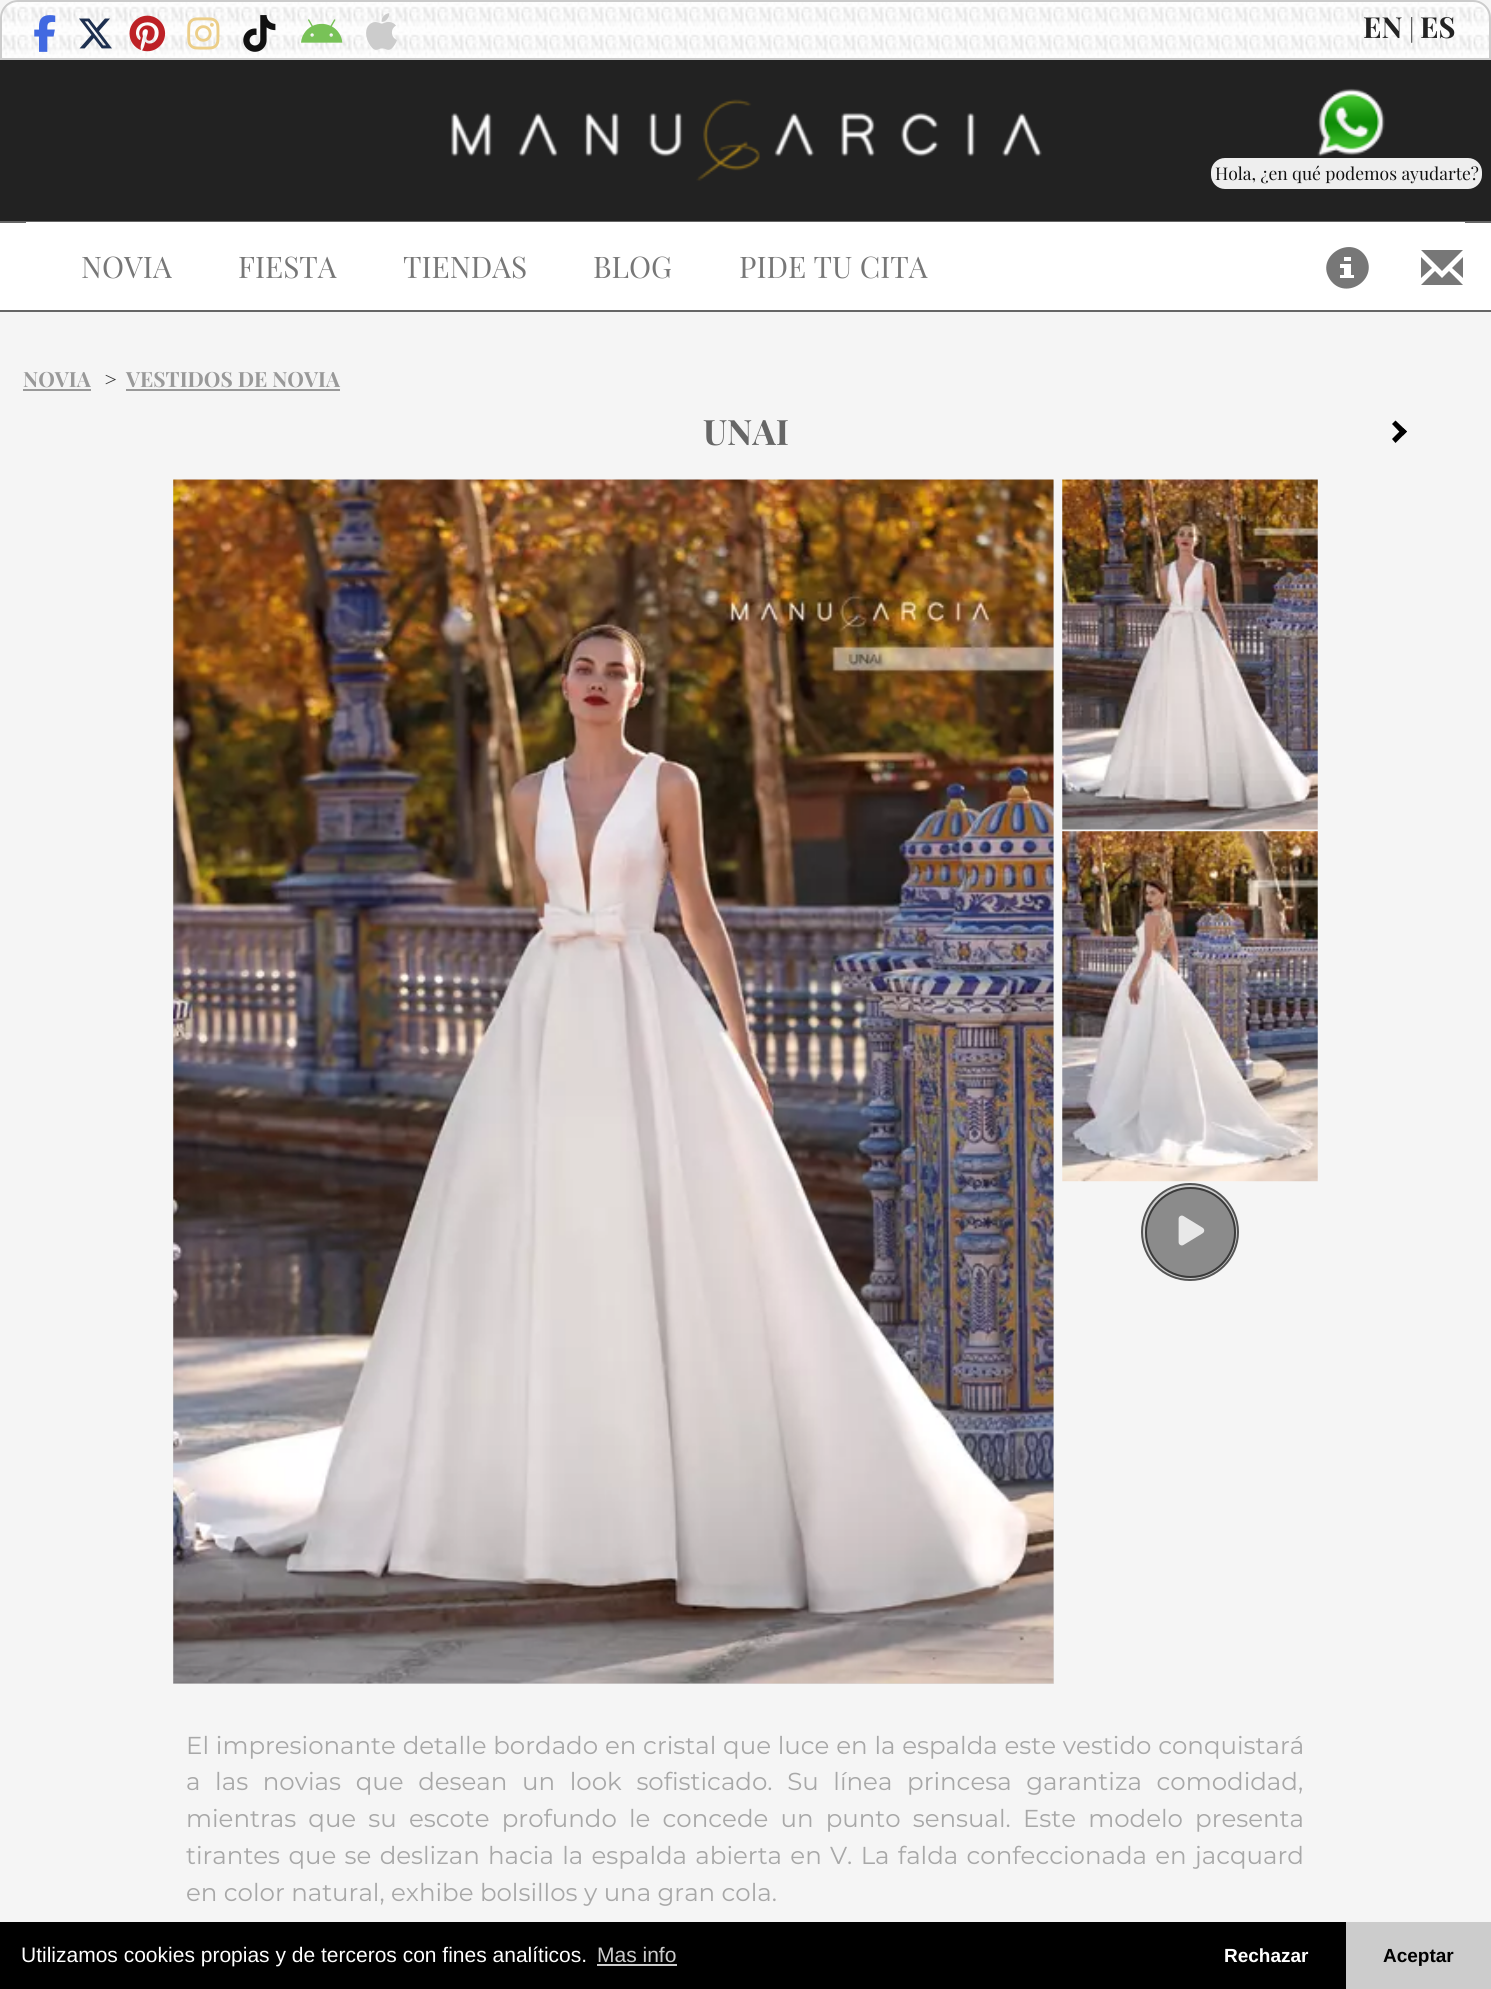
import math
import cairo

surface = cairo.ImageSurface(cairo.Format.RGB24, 1491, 1989)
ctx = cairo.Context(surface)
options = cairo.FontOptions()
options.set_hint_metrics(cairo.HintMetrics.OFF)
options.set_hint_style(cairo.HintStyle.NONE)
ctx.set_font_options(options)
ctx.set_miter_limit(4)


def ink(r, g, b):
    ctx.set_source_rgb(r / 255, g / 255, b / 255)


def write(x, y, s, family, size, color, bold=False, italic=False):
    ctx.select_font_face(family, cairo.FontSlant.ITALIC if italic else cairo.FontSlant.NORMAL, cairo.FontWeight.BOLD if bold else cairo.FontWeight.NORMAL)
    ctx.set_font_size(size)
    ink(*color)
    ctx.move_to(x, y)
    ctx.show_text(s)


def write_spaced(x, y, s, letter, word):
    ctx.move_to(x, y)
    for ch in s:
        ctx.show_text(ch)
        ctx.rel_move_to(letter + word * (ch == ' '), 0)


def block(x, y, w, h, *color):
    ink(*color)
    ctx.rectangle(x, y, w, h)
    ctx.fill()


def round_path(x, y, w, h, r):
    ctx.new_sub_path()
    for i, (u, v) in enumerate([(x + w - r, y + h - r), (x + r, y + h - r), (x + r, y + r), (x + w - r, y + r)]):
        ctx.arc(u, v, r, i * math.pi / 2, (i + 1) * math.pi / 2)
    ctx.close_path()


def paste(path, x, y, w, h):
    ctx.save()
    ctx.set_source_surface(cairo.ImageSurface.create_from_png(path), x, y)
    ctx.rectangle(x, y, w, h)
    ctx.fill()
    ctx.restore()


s1 = dict(family="Playfair Display", size=29, color=(34, 34, 34), bold=True)
s2 = dict(family="Playfair Display", size=24.5, color=(51, 51, 51))
s3 = dict(family="Playfair Display", size=17.5, color=(17, 17, 17))
s4 = dict(family="Playfair Display", size=29.75, color=(119, 119, 119))
s5 = dict(family="Playfair Display", size=21, color=(153, 153, 153), bold=True)
s6 = dict(family="Playfair Display", size=21, color=(51, 51, 51))
s7 = dict(family="Playfair Display", size=35, color=(102, 102, 102), bold=True)
s8 = dict(family="Montserrat", size=24.5, color=(168, 168, 168))
s9 = dict(family="Liberation Sans", size=21, color=(255, 255, 255))
s10 = dict(family="Liberation Sans", size=21, color=(204, 204, 204))
s11 = dict(family="Liberation Sans", size=19, color=(255, 255, 255), bold=True)
s12 = dict(family="Liberation Sans", size=19, color=(0, 0, 0), bold=True)

ink(245, 245, 245)
ctx.paint()
paste("pic1.png", 0, 0, 1491, 58)
ctx.new_path()
ctx.move_to(18, 1)
ctx.line_to(1473, 1)
ctx.curve_to(1482.5, 1, 1490, 8.5, 1490, 18)
ctx.line_to(1490, 59)
ctx.line_to(1, 59)
ctx.line_to(1, 18)
ctx.curve_to(1, 8.5, 8.5, 1, 18, 1)
ctx.close_path()
ink(204, 204, 204)
ctx.stroke()
paste("pic2.png", 34, 15, 22, 37)
paste("pic3.png", 79, 18, 33, 31)
paste("pic4.png", 129, 15, 37, 37)
paste("pic5.png", 187, 17, 33, 33)
paste("pic6.png", 243, 15, 33, 37)
paste("pic7.png", 301, 19, 42, 24)
paste("pic8.png", 366, 13, 31, 37)
write(1363, 38, "EN", **s1)
write(1409, 38, "|", **s2)
write(1420, 38, "ES", **s1)
block(0, 60, 1491, 161, 34, 34, 34)
paste("pic9.png", 451, 99, 591, 82)
paste("pic10.png", 1317, 88, 68, 69)
ink(238, 238, 238)
round_path(1211, 158, 271, 31, 14)
ctx.fill()
write(1215, 180, "Hola, ¿en qué podemos ayudarte?", **s3)
block(0, 223, 1491, 87, 255, 255, 255)
block(0, 221, 1491, 2, 102, 102, 102)
block(0, 310, 1491, 2, 102, 102, 102)
block(26, 222, 1439, 1, 255, 255, 255)
write(81, 278, "NOVIA", **s4)
write(238, 278, "FIESTA", **s4)
write(403, 278, "TIENDAS", **s4)
write(593, 278, "BLOG", **s4)
write(739, 278, "PIDE TU CITA", **s4)
ctx.new_path()
ctx.move_to(1329, 278)
ctx.curve_to(1316, 255, 1352, 234, 1366, 257)
ctx.curve_to(1379, 281, 1343, 302, 1329, 278)
ctx.close_path()
ctx.move_to(1340, 278)
ctx.line_to(1354, 278)
ctx.line_to(1354, 275)
ctx.line_to(1351, 275)
ctx.line_to(1351, 264)
ctx.line_to(1340, 264)
ctx.line_to(1340, 268)
ctx.line_to(1344, 268)
ctx.line_to(1344, 275)
ctx.line_to(1340, 275)
ctx.close_path()
ctx.move_to(1344, 261)
ctx.line_to(1351, 261)
ctx.line_to(1351, 257)
ctx.line_to(1344, 257)
ctx.close_path()
ctx.fill()
ctx.new_path()
ctx.move_to(1421, 285)
ctx.line_to(1435, 271)
ctx.line_to(1442, 278)
ctx.line_to(1449, 271)
ctx.line_to(1463, 285)
ctx.close_path()
ctx.move_to(1421, 278)
ctx.line_to(1421, 257)
ctx.line_to(1432, 268)
ctx.close_path()
ctx.move_to(1421, 250)
ctx.line_to(1442, 271)
ctx.line_to(1463, 250)
ctx.close_path()
ctx.move_to(1452, 268)
ctx.line_to(1463, 257)
ctx.line_to(1463, 278)
ctx.close_path()
ctx.fill()
write(23, 387, "NOVIA", **s5)
block(23, 389, 68, 2, 153, 153, 153)
write(104, 387, ">", **s6)
write(126, 387, "VESTIDOS DE NOVIA", **s5)
block(126, 389, 214, 2, 153, 153, 153)
write(703, 445, "UNAI", **s7)
ink(0, 0, 0)
ctx.new_path()
ctx.move_to(1392, 424)
ctx.line_to(1395.5, 420.5)
ctx.line_to(1407, 431.5)
ctx.line_to(1403, 435.5)
ctx.close_path()
ctx.fill()
ctx.new_path()
ctx.move_to(1392, 439)
ctx.line_to(1403, 428)
ctx.line_to(1407, 431.5)
ctx.line_to(1395.5, 443)
ctx.close_path()
ctx.fill()
block(173, 480, 881, 1204, 221, 221, 221)
paste("pic11.png", 173, 479, 881, 1205)
paste("pic12.png", 1062, 479, 256, 351)
paste("pic13.png", 1062, 831, 256, 351)
ink(204, 204, 204)
ctx.arc(1190, 1232, 48, 0, 2 * math.pi)
ctx.fill_preserve()
ink(85, 85, 85)
ctx.stroke()
ctx.arc(1190.5, 1232.5, 44.5, 0, 2 * math.pi)
ctx.stroke()
ctx.set_source_rgba(0, 0, 0, 0.32)
ctx.arc(1190.5, 1232.5, 45.5, 0, 2 * math.pi)
ctx.fill()
paste("pic14.png", 1178, 1215, 27, 31)
ctx.select_font_face("Montserrat")
ctx.set_font_size(24.5)
ink(168, 168, 168)
write_spaced(186, 1754, "El impresionante detalle bordado en cristal que luce en la espalda este vestido conquistará", 0, 0.4)
write_spaced(186, 1790, "a las novias que desean un look sofisticado. Su línea princesa garantiza comodidad,", 0, 8.25)
write_spaced(186, 1827, "mientras que su escote profundo le concede un punto sensual. Este modelo presenta", 0, 5.75)
write_spaced(186, 1864, "tirantes que se deslizan hacia la espalda abierta en V. La falda confeccionada en jacquard", 0, 1.9)
write(186, 1901, "en color natural, exhibe bolsillos y una gran cola.", **s8)
block(0, 1922, 1346, 67, 0, 0, 0)
write(21, 1962, "Utilizamos cookies propias y de terceros con fines analíticos.", **s9)
write(597, 1962, "Mas info", **s10)
block(597, 1964, 80, 2, 204, 204, 204)
write(1224, 1962, "Rechazar", **s11)
block(1346, 1922, 145, 67, 204, 204, 204)
write(1383, 1962, "Aceptar", **s12)
surface.write_to_png("screenshot.png")
